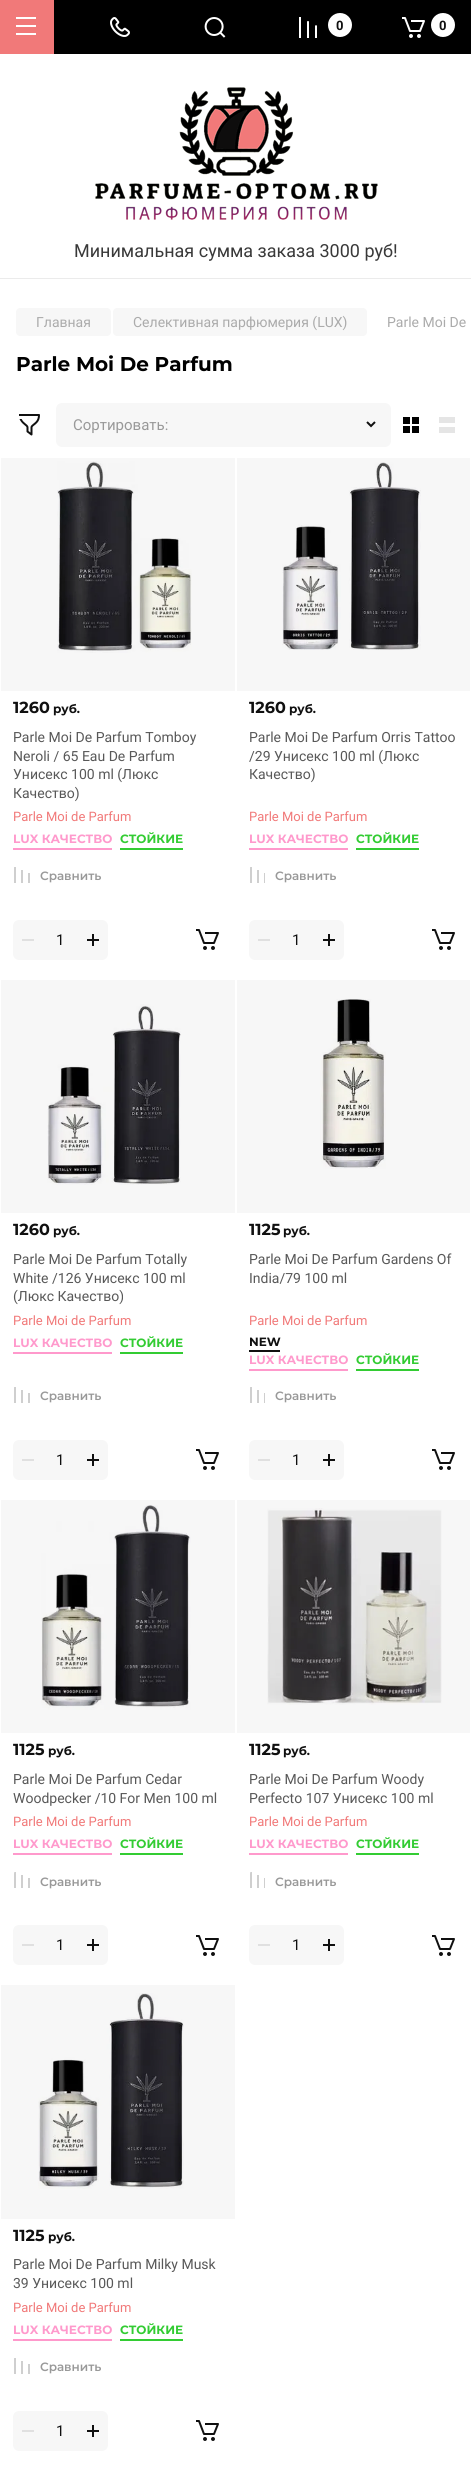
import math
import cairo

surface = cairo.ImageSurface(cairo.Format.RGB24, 471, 2479)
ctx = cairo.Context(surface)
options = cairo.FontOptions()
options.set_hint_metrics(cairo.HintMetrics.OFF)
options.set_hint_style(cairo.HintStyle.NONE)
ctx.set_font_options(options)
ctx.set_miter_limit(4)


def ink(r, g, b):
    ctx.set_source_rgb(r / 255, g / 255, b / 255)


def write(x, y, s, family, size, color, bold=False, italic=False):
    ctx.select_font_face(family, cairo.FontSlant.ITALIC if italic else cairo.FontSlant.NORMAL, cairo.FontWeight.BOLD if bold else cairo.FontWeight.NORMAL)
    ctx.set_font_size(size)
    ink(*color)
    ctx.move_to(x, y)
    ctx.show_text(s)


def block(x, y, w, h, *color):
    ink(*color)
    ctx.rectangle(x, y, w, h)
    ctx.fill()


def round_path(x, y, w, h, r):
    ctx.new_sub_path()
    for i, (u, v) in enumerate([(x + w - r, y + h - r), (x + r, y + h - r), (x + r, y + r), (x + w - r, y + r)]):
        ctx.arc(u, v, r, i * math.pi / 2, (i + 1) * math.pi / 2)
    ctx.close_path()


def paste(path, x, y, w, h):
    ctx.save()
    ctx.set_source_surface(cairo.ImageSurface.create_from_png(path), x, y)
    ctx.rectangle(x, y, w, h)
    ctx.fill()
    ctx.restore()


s1 = dict(family="Roboto", size=13, color=(16, 16, 16), bold=True)
s2 = dict(family="Roboto", size=18, color=(57, 57, 57))
s3 = dict(family="Roboto", size=14, color=(171, 171, 171))
s4 = dict(family="Montserrat", size=20, color=(0, 0, 0), bold=True)
s5 = dict(family="Roboto", size=15, color=(153, 153, 153))
s6 = dict(family="Montserrat", size=16, color=(16, 16, 16), bold=True)
s7 = dict(family="Montserrat", size=12, color=(16, 16, 16), bold=True)
s8 = dict(family="Roboto", size=14, color=(88, 88, 88))
s9 = dict(family="Roboto", size=13, color=(241, 121, 121))
s10 = dict(family="Montserrat", size=12, color=(255, 153, 204), bold=True)
s11 = dict(family="Montserrat", size=12, color=(51, 204, 51), bold=True)
s12 = dict(family="Montserrat SemiBold", size=12, color=(153, 153, 153))
s13 = dict(family="Roboto", size=15, color=(16, 16, 16))

ink(255, 255, 255)
ctx.paint()
block(1, 1985, 234, 234, 247, 247, 247)
block(237, 1500, 233, 233, 247, 247, 247)
block(1, 1500, 234, 233, 247, 247, 247)
block(237, 980, 233, 233, 247, 247, 247)
block(1, 980, 234, 233, 247, 247, 247)
block(237, 458, 233, 233, 247, 247, 247)
block(1, 458, 234, 233, 247, 247, 247)
block(54, 0, 417, 54, 0, 0, 0)
block(0, 0, 54, 54, 241, 121, 121)
paste("pic1.png", 16, 17, 20, 18)
paste("pic2.png", 110, 17, 20, 20)
paste("pic3.png", 204, 17, 22, 21)
paste("pic4.png", 299, 17, 18, 21)
ink(255, 255, 255)
ctx.arc(340, 25, 12, 0, 2 * math.pi)
ctx.fill()
write(336, 30, "0", **s1)
paste("pic5.png", 402, 17, 23, 21)
ink(255, 255, 255)
ctx.arc(443, 25, 12, 0, 2 * math.pi)
ctx.fill()
write(439, 30, "0", **s1)
block(0, 278, 471, 1, 235, 235, 235)
paste("pic6.png", 95, 87, 283, 133)
write(74, 257, "Минимальная сумма заказа 3000 руб!", **s2)
ink(247, 247, 247)
round_path(16, 308, 95, 28, 4)
ctx.fill()
write(36, 327, "Главная", **s3)
ink(247, 247, 247)
round_path(113, 308, 254, 28, 4)
ctx.fill()
write(133, 327, "Селективная парфюмерия (LUX)", **s3)
write(387, 327, "Parle Moi De", **s3)
write(16, 371, "Parle Moi De Parfum", **s4)
paste("pic7.png", 19, 414, 21, 22)
ink(247, 247, 247)
round_path(56, 403, 335, 44, 6)
ctx.fill()
write(73, 430, "Сортировать:", **s5)
ctx.new_path()
ctx.move_to(375, 422)
ctx.line_to(371, 426)
ctx.line_to(367, 422)
ink(16, 16, 16)
ctx.stroke()
paste("pic8.png", 403, 417, 16, 16)
paste("pic9.png", 439, 417, 16, 16)
paste("pic10.png", 57, 461, 135, 192)
write(13, 713, "1260", **s6)
write(53, 713, "руб.", **s7)
write(13, 742, "Parle Moi De Parfum Tomboy", **s8)
write(13, 761, "Neroli / 65 Eau De Parfum", **s8)
write(13, 779, "Унисекс 100 ml (Люкс", **s8)
write(13, 798, "Качество)", **s8)
write(13, 821, "Parle Moi de Parfum", **s9)
block(13, 848, 99, 2, 255, 153, 204)
write(13, 843, "LUX КАЧЕСТВО", **s10)
block(120, 848, 63, 2, 51, 204, 51)
write(120, 843, "СТОЙКИЕ", **s11)
paste("pic11.png", 14, 867, 16, 16)
write(40, 880, "Сравнить", **s12)
ink(247, 247, 247)
round_path(13, 920, 95, 40, 6)
ctx.fill()
block(22, 939, 12, 2, 224, 224, 224)
write(56, 945, "1", **s13)
paste("pic12.png", 87, 934, 12, 12)
paste("pic13.png", 196, 929, 23, 21)
paste("pic14.png", 282, 462, 139, 188)
write(249, 713, "1260", **s6)
write(289, 713, "руб.", **s7)
write(249, 742, "Parle Moi De Parfum Orris Tattoo", **s8)
write(249, 761, "/29 Унисекс 100 ml (Люкс", **s8)
write(249, 779, "Качество)", **s8)
write(249, 821, "Parle Moi de Parfum", **s9)
block(249, 848, 99, 2, 255, 153, 204)
write(249, 843, "LUX КАЧЕСТВО", **s10)
block(356, 848, 63, 2, 51, 204, 51)
write(356, 843, "СТОЙКИЕ", **s11)
paste("pic15.png", 250, 867, 15, 16)
write(275, 880, "Сравнить", **s12)
ink(247, 247, 247)
round_path(249, 920, 95, 40, 6)
ctx.fill()
block(258, 939, 12, 2, 224, 224, 224)
write(292, 945, "1", **s13)
paste("pic12.png", 323, 934, 12, 12)
paste("pic13.png", 432, 929, 23, 21)
paste("pic16.png", 47, 1004, 134, 181)
write(13, 1235, "1260", **s6)
write(53, 1235, "руб.", **s7)
write(13, 1264, "Parle Moi De Parfum Totally", **s8)
write(13, 1283, "White /126 Унисекс 100 ml", **s8)
write(13, 1301, "(Люкс Качество)", **s8)
write(13, 1325, "Parle Moi de Parfum", **s9)
block(13, 1352, 99, 2, 255, 153, 204)
write(13, 1347, "LUX КАЧЕСТВО", **s10)
block(120, 1352, 63, 2, 51, 204, 51)
write(120, 1347, "СТОЙКИЕ", **s11)
paste("pic11.png", 14, 1387, 16, 16)
write(40, 1400, "Сравнить", **s12)
ink(247, 247, 247)
round_path(13, 1440, 95, 40, 6)
ctx.fill()
block(22, 1459, 12, 2, 224, 224, 224)
write(56, 1465, "1", **s13)
paste("pic12.png", 87, 1454, 12, 12)
paste("pic13.png", 196, 1449, 23, 21)
paste("pic17.png", 320, 999, 66, 170)
write(249, 1235, "1125", **s6)
write(283, 1235, "руб.", **s7)
write(249, 1264, "Parle Moi De Parfum Gardens Of", **s8)
write(249, 1283, "India/79 100 ml", **s8)
write(249, 1325, "Parle Moi de Parfum", **s9)
block(249, 1350, 31, 2, 16, 16, 16)
write(249, 1346, "NEW", **s7)
block(249, 1369, 99, 2, 255, 153, 204)
write(249, 1364, "LUX КАЧЕСТВО", **s10)
block(356, 1369, 63, 2, 51, 204, 51)
write(356, 1364, "СТОЙКИЕ", **s11)
paste("pic15.png", 250, 1387, 15, 16)
write(275, 1400, "Сравнить", **s12)
ink(247, 247, 247)
round_path(249, 1440, 95, 40, 6)
ctx.fill()
block(258, 1459, 12, 2, 224, 224, 224)
write(292, 1465, "1", **s13)
paste("pic12.png", 323, 1454, 12, 12)
paste("pic13.png", 432, 1449, 23, 21)
paste("pic18.png", 41, 1505, 150, 205)
write(13, 1755, "1125", **s6)
write(48, 1755, "руб.", **s7)
write(13, 1784, "Parle Moi De Parfum Cedar", **s8)
write(13, 1803, "Woodpecker /10 For Men 100 ml", **s8)
write(13, 1826, "Parle Moi de Parfum", **s9)
block(13, 1853, 99, 2, 255, 153, 204)
write(13, 1848, "LUX КАЧЕСТВО", **s10)
block(120, 1853, 63, 2, 51, 204, 51)
write(120, 1848, "СТОЙКИЕ", **s11)
paste("pic19.png", 14, 1872, 16, 16)
write(40, 1886, "Сравнить", **s12)
ink(247, 247, 247)
round_path(13, 1925, 95, 40, 6)
ctx.fill()
block(22, 1944, 12, 2, 224, 224, 224)
write(56, 1950, "1", **s13)
paste("pic12.png", 87, 1939, 12, 12)
paste("pic13.png", 196, 1935, 23, 21)
paste("pic20.png", 267, 1508, 175, 197)
write(249, 1755, "1125", **s6)
write(283, 1755, "руб.", **s7)
write(249, 1784, "Parle Moi De Parfum Woody", **s8)
write(249, 1803, "Perfecto 107 Унисекс 100 ml", **s8)
write(249, 1826, "Parle Moi de Parfum", **s9)
block(249, 1853, 99, 2, 255, 153, 204)
write(249, 1848, "LUX КАЧЕСТВО", **s10)
block(356, 1853, 63, 2, 51, 204, 51)
write(356, 1848, "СТОЙКИЕ", **s11)
paste("pic21.png", 250, 1872, 15, 16)
write(275, 1886, "Сравнить", **s12)
ink(247, 247, 247)
round_path(249, 1925, 95, 40, 6)
ctx.fill()
block(258, 1944, 12, 2, 224, 224, 224)
write(292, 1950, "1", **s13)
paste("pic12.png", 323, 1939, 12, 12)
paste("pic13.png", 432, 1935, 23, 21)
paste("pic22.png", 38, 1993, 146, 196)
write(13, 2241, "1125", **s6)
write(48, 2241, "руб.", **s7)
write(13, 2269, "Parle Moi De Parfum Milky Musk", **s8)
write(13, 2288, "39 Унисекс 100 ml", **s8)
write(13, 2312, "Parle Moi de Parfum", **s9)
block(13, 2339, 99, 2, 255, 153, 204)
write(13, 2334, "LUX КАЧЕСТВО", **s10)
block(120, 2339, 63, 2, 51, 204, 51)
write(120, 2334, "СТОЙКИЕ", **s11)
paste("pic11.png", 14, 2358, 16, 16)
write(40, 2371, "Сравнить", **s12)
ink(247, 247, 247)
round_path(13, 2411, 95, 40, 6)
ctx.fill()
block(22, 2430, 12, 2, 224, 224, 224)
write(56, 2436, "1", **s13)
paste("pic12.png", 87, 2425, 12, 12)
paste("pic13.png", 196, 2420, 23, 21)
surface.write_to_png("screenshot.png")
